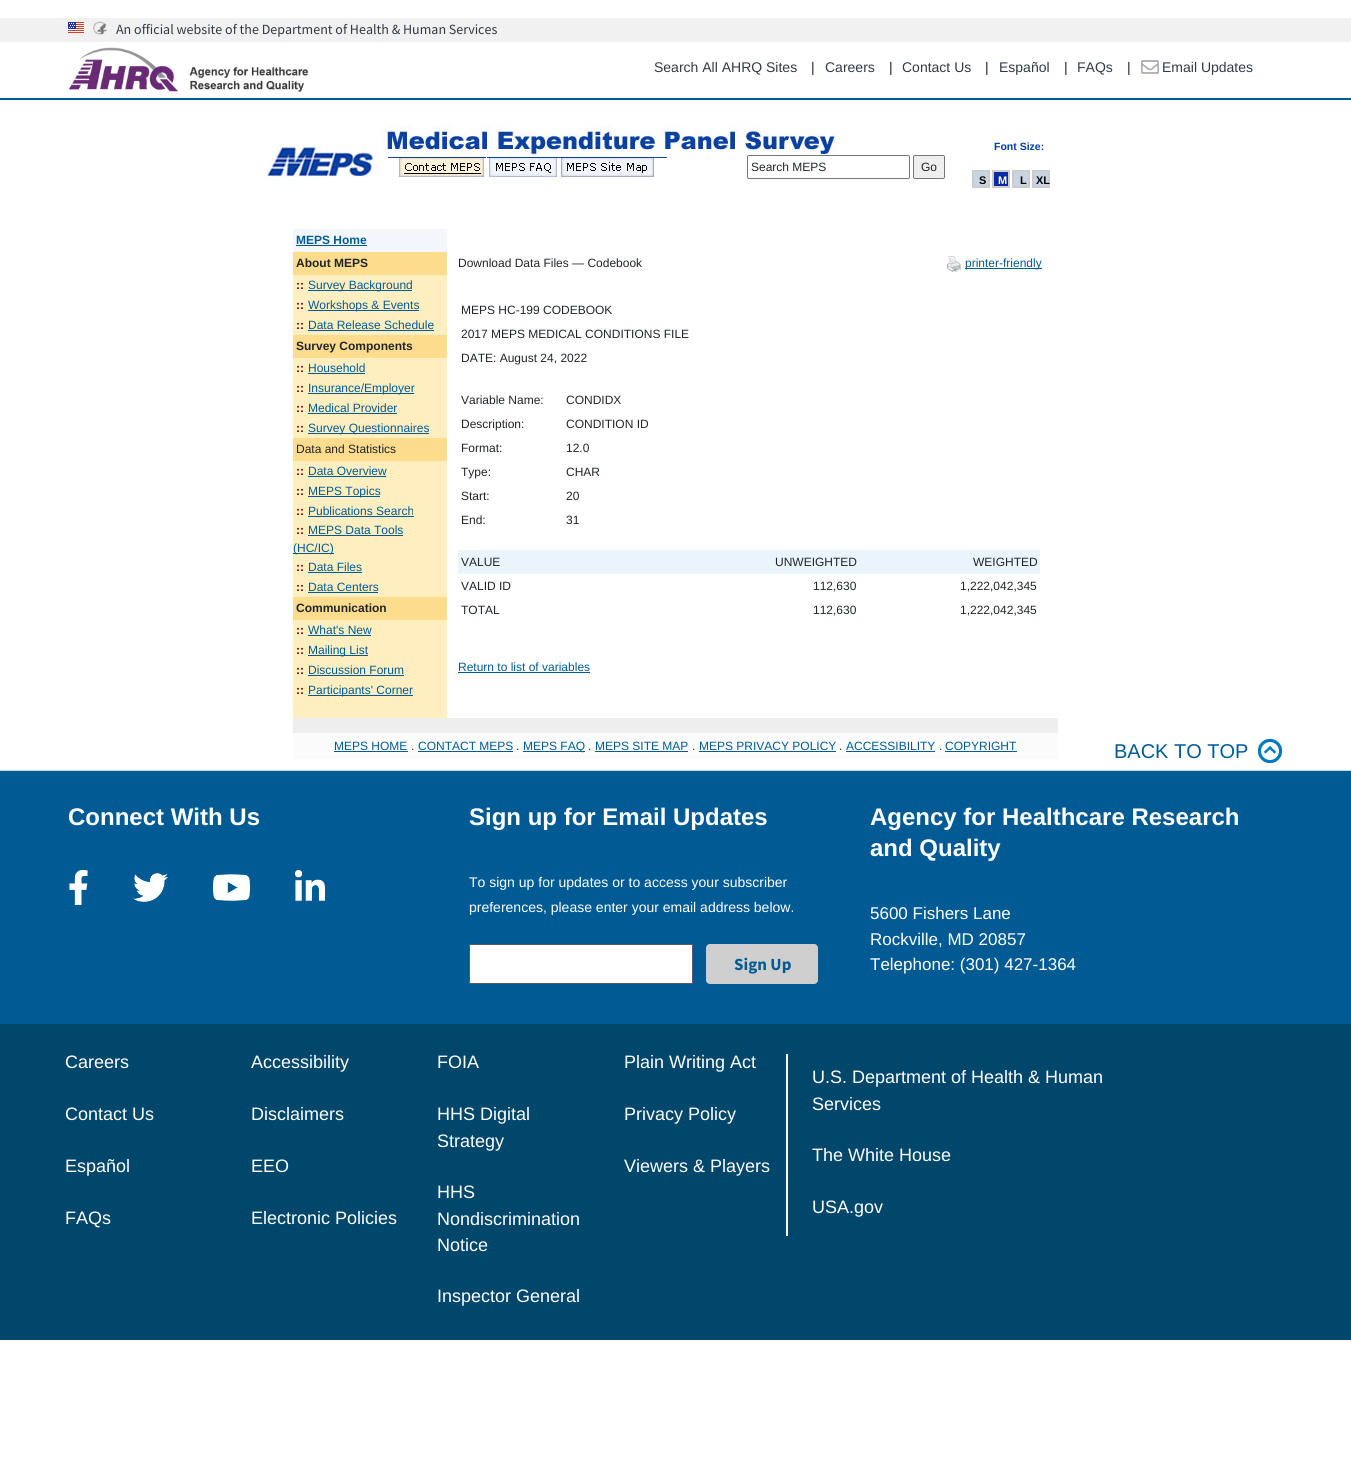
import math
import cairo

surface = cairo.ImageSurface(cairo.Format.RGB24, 1351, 1472)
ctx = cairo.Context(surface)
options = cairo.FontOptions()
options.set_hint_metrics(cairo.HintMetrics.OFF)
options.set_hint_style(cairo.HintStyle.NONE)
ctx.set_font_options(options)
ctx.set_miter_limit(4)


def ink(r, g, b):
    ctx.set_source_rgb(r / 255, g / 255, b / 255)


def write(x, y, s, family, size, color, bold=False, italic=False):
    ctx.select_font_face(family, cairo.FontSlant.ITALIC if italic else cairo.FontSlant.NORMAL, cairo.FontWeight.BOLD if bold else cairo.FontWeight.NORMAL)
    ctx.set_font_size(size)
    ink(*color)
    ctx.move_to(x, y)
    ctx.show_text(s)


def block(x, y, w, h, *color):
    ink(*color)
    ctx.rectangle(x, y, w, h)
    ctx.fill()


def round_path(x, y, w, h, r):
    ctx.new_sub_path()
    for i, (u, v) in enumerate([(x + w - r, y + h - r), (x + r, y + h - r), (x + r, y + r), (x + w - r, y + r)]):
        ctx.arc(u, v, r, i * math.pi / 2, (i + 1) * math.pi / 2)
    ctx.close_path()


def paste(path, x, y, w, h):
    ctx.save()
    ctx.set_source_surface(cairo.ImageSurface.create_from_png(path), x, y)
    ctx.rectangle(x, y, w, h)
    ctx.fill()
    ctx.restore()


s1 = dict(family="Source Sans Pro", size=14, color=(50, 58, 69))
s2 = dict(family="Liberation Sans", size=14, color=(50, 58, 69))
s3 = dict(family="Liberation Sans", size=14, color=(33, 37, 41))
s4 = dict(family="Liberation Sans", size=10.5, color=(0, 62, 159), bold=True)
s5 = dict(family="Liberation Sans", size=12, color=(33, 37, 41))
s6 = dict(family="Liberation Sans", size=11, color=(0, 0, 0), bold=True)
s7 = dict(family="Liberation Sans", size=11, color=(255, 255, 255), bold=True)
s8 = dict(family="Liberation Sans", size=12, color=(0, 91, 148), bold=True)
s9 = dict(family="Liberation Sans", size=12, color=(33, 37, 41), bold=True)
s10 = dict(family="Liberation Sans", size=12, color=(102, 0, 0), bold=True)
s11 = dict(family="Liberation Sans", size=12, color=(0, 91, 148))
s12 = dict(family="Liberation Sans", size=20, color=(0, 91, 148))
s13 = dict(family="Liberation Sans", size=24, color=(255, 255, 255), bold=True)
s14 = dict(family="Liberation Sans", size=14, color=(255, 255, 255))
s15 = dict(family="Source Sans Pro", size=17, color=(0, 91, 148), bold=True)
s16 = dict(family="Liberation Sans", size=17, color=(255, 255, 255))
s17 = dict(family="Liberation Sans", size=18, color=(255, 255, 255))

ink(255, 255, 255)
ctx.paint()
block(0, 18, 1351, 24, 241, 241, 241)
paste("pic1.png", 68, 22, 16, 11)
paste("pic2.png", 93, 21, 14, 14)
write(116, 34, "An official website of the Department of Health & Human Services", **s1)
block(0, 98, 1351, 2, 0, 91, 148)
paste("pic3.png", 68, 47, 241, 45)
write(654, 72, "Search All AHRQ Sites", **s2)
write(811, 72, "|", **s3)
write(825, 72, "Careers", **s2)
write(889, 72, "|", **s3)
write(902, 72, "Contact Us", **s2)
write(985, 72, "|", **s3)
write(999, 72, "Español", **s2)
write(1064, 72, "|", **s3)
write(1077, 72, "FAQs", **s2)
write(1127, 72, "|", **s3)
paste("pic4.png", 1141, 60, 18, 14)
write(1162, 72, "Email Updates", **s2)
paste("pic5.png", 266, 145, 112, 32)
paste("pic6.png", 381, 125, 456, 30)
write(994, 150, "Font Size:", **s4)
paste("pic7.png", 388, 157, 98, 20)
paste("pic8.png", 487, 157, 72, 20)
paste("pic9.png", 559, 157, 108, 21)
round_path(747.5, 155.5, 162, 23, 1.5)
ink(118, 118, 118)
ctx.set_line_width(1)
ctx.stroke()
write(751, 171, "Search MEPS", **s5)
ink(239, 239, 239)
round_path(913.5, 155.5, 31, 23, 1.5)
ctx.fill_preserve()
ink(118, 118, 118)
ctx.stroke()
write(921, 171, "Go", **s5)
ink(200, 213, 228)
ctx.rectangle(973, 171, 16, 16)
ctx.fill_preserve()
ink(204, 204, 204)
ctx.set_line_width(2)
ctx.stroke()
write(979, 184, "S", **s6)
ink(10, 41, 165)
ctx.rectangle(993, 171, 16, 16)
ctx.fill_preserve()
ink(204, 204, 204)
ctx.stroke()
write(998, 184, "M", **s7)
ink(200, 213, 228)
ctx.rectangle(1013, 171, 16, 16)
ctx.fill_preserve()
ink(204, 204, 204)
ctx.stroke()
write(1020, 184, "L", **s6)
ink(200, 213, 228)
ctx.rectangle(1033, 171, 16, 16)
ctx.fill_preserve()
ink(204, 204, 204)
ctx.stroke()
write(1036, 184, "XL", **s6)
block(293, 275, 154, 443, 255, 238, 192)
block(293, 229, 154, 23, 243, 247, 252)
write(296, 244, "MEPS Home", **s8)
block(296, 245, 71, 1, 0, 91, 148)
block(293, 252, 154, 23, 253, 220, 141)
write(296, 267, "About MEPS", **s9)
write(296, 289, "::", **s10)
block(308, 290, 104, 1, 0, 91, 148)
write(308, 289, "Survey Background", **s11)
write(296, 309, "::", **s10)
block(308, 310, 111, 1, 0, 91, 148)
write(308, 309, "Workshops & Events", **s11)
write(296, 329, "::", **s10)
write(308, 329, "Data Release Schedule", **s11)
block(308, 330, 126, 1, 0, 91, 148)
block(293, 335, 154, 23, 253, 220, 141)
write(296, 350, "Survey Components", **s9)
write(296, 372, "::", **s10)
write(308, 372, "Household", **s11)
block(308, 373, 57, 1, 0, 91, 148)
write(296, 392, "::", **s10)
block(308, 393, 106, 1, 0, 91, 148)
write(308, 392, "Insurance/Employer", **s11)
write(296, 412, "::", **s10)
write(308, 412, "Medical Provider", **s11)
block(308, 413, 89, 1, 0, 91, 148)
write(296, 432, "::", **s10)
block(308, 433, 121, 1, 0, 91, 148)
write(308, 432, "Survey Questionnaires", **s11)
block(293, 438, 154, 23, 253, 220, 141)
write(296, 453, "Data and Statistics", **s5)
write(296, 475, "::", **s10)
write(308, 475, "Data Overview", **s11)
block(308, 476, 78, 1, 0, 91, 148)
write(296, 495, "::", **s10)
block(308, 496, 72, 1, 0, 91, 148)
write(308, 495, "MEPS Topics", **s11)
write(296, 515, "::", **s10)
write(308, 515, "Publications Search", **s11)
block(308, 516, 106, 1, 0, 91, 148)
write(296, 534, "::", **s10)
write(308, 534, "MEPS Data Tools", **s11)
block(308, 535, 95, 1, 0, 91, 148)
block(293, 553, 41, 1, 0, 91, 148)
write(293, 552, "(HC/IC)", **s11)
write(296, 571, "::", **s10)
write(308, 571, "Data Files", **s11)
block(308, 572, 54, 1, 0, 91, 148)
write(296, 591, "::", **s10)
write(308, 591, "Data Centers", **s11)
block(308, 592, 70, 1, 0, 91, 148)
block(293, 597, 154, 23, 253, 220, 141)
write(296, 612, "Communication", **s9)
write(296, 634, "::", **s10)
write(308, 634, "What's New", **s11)
block(308, 635, 63, 1, 0, 91, 148)
write(296, 654, "::", **s10)
block(308, 655, 60, 1, 0, 91, 148)
write(308, 654, "Mailing List", **s11)
write(296, 674, "::", **s10)
write(308, 674, "Discussion Forum", **s11)
block(308, 675, 96, 1, 0, 91, 148)
write(296, 694, "::", **s10)
block(308, 695, 105, 1, 0, 91, 148)
write(308, 694, "Participants' Corner", **s11)
write(458, 267, "Download Data Files — Codebook", **s5)
paste("pic10.png", 947, 256, 14, 16)
block(965, 268, 77, 1, 0, 91, 148)
write(965, 267, "printer-friendly", **s11)
write(461, 314, "MEPS HC-199 CODEBOOK", **s5)
write(461, 338, "2017 MEPS MEDICAL CONDITIONS FILE", **s5)
write(461, 362, "DATE: August 24, 2022", **s5)
write(461, 404, "Variable Name:", **s5)
write(566, 404, "CONDIDX", **s5)
write(461, 428, "Description:", **s5)
write(566, 428, "CONDITION ID", **s5)
write(461, 452, "Format:", **s5)
write(566, 452, "12.0", **s5)
write(461, 476, "Type:", **s5)
write(566, 476, "CHAR", **s5)
write(461, 500, "Start:", **s5)
write(566, 500, "20", **s5)
write(461, 524, "End:", **s5)
write(566, 524, "31", **s5)
block(458, 550, 582, 24, 234, 244, 253)
write(461, 566, "VALUE", **s5)
write(775, 566, "UNWEIGHTED", **s5)
write(973, 566, "WEIGHTED", **s5)
write(461, 590, "VALID ID", **s5)
write(813, 590, "112,630", **s5)
write(960, 590, "1,222,042,345", **s5)
write(461, 614, "TOTAL", **s5)
write(813, 614, "112,630", **s5)
write(960, 614, "1,222,042,345", **s5)
write(458, 671, "Return to list of variables", **s11)
block(458, 672, 132, 1, 0, 91, 148)
block(293, 718, 765, 15, 238, 238, 238)
block(293, 733, 765, 26, 251, 251, 251)
write(334, 750, "MEPS HOME", **s11)
block(334, 751, 74, 1, 0, 91, 148)
write(411, 750, ".", **s5)
write(418, 750, "CONTACT MEPS", **s11)
block(418, 751, 95, 1, 0, 91, 148)
write(516, 750, ".", **s5)
block(523, 751, 62, 1, 0, 91, 148)
write(523, 750, "MEPS FAQ", **s11)
write(588, 750, ".", **s5)
write(595, 750, "MEPS SITE MAP", **s11)
block(595, 751, 93, 1, 0, 91, 148)
write(692, 750, ".", **s5)
write(699, 750, "MEPS PRIVACY POLICY", **s11)
block(699, 751, 137, 1, 0, 91, 148)
write(839, 750, ".", **s5)
write(846, 750, "ACCESSIBILITY", **s11)
block(846, 751, 89, 1, 0, 91, 148)
write(939, 750, ".", **s5)
write(945, 750, "COPYRIGHT", **s11)
block(945, 751, 72, 1, 0, 91, 148)
write(1114, 758, "BACK TO TOP", **s12)
paste("pic11.png", 1258, 738, 25, 25)
block(0, 770, 1351, 1, 209, 209, 209)
block(0, 771, 1351, 253, 0, 91, 148)
write(68, 825, "Connect With Us", **s13)
paste("pic12.png", 69, 870, 19, 35)
paste("pic13.png", 133, 873, 35, 29)
paste("pic14.png", 212, 874, 39, 27)
paste("pic15.png", 295, 870, 30, 31)
write(469, 825, "Sign up for Email Updates", **s13)
write(469, 887, "To sign up for updates or to access your subscriber", **s14)
write(469, 912, "preferences, please enter your email address below.", **s14)
ctx.rectangle(469.5, 944.5, 223, 39)
ctx.fill_preserve()
ink(86, 92, 101)
ctx.set_line_width(1)
ctx.stroke()
ink(207, 207, 207)
round_path(706, 944, 112, 40, 4)
ctx.fill()
write(734, 970, "Sign Up", **s15)
write(870, 825, "Agency for Healthcare Research", **s13)
write(870, 856, "and Quality", **s13)
write(870, 919, "5600 Fishers Lane", **s16)
write(870, 945, "Rockville, MD 20857", **s16)
write(870, 970, "Telephone: (301) 427-1364", **s16)
block(0, 1024, 1351, 316, 0, 71, 107)
write(65, 1068, "Careers", **s17)
write(65, 1120, "Contact Us", **s17)
write(65, 1172, "Español", **s17)
write(65, 1224, "FAQs", **s17)
write(251, 1068, "Accessibility", **s17)
write(251, 1120, "Disclaimers", **s17)
write(251, 1172, "EEO", **s17)
write(251, 1224, "Electronic Policies", **s17)
write(437, 1068, "FOIA", **s17)
write(437, 1120, "HHS Digital", **s17)
write(437, 1147, "Strategy", **s17)
write(437, 1198, "HHS", **s17)
write(437, 1225, "Nondiscrimination", **s17)
write(437, 1251, "Notice", **s17)
write(437, 1302, "Inspector General", **s17)
write(624, 1068, "Plain Writing Act", **s17)
write(624, 1120, "Privacy Policy", **s17)
write(624, 1172, "Viewers & Players", **s17)
block(786, 1054, 2, 182, 255, 255, 255)
write(812, 1083, "U.S. Department of Health & Human", **s17)
write(812, 1110, "Services", **s17)
write(812, 1161, "The White House", **s17)
write(812, 1213, "USA.gov", **s17)
surface.write_to_png("screenshot.png")
